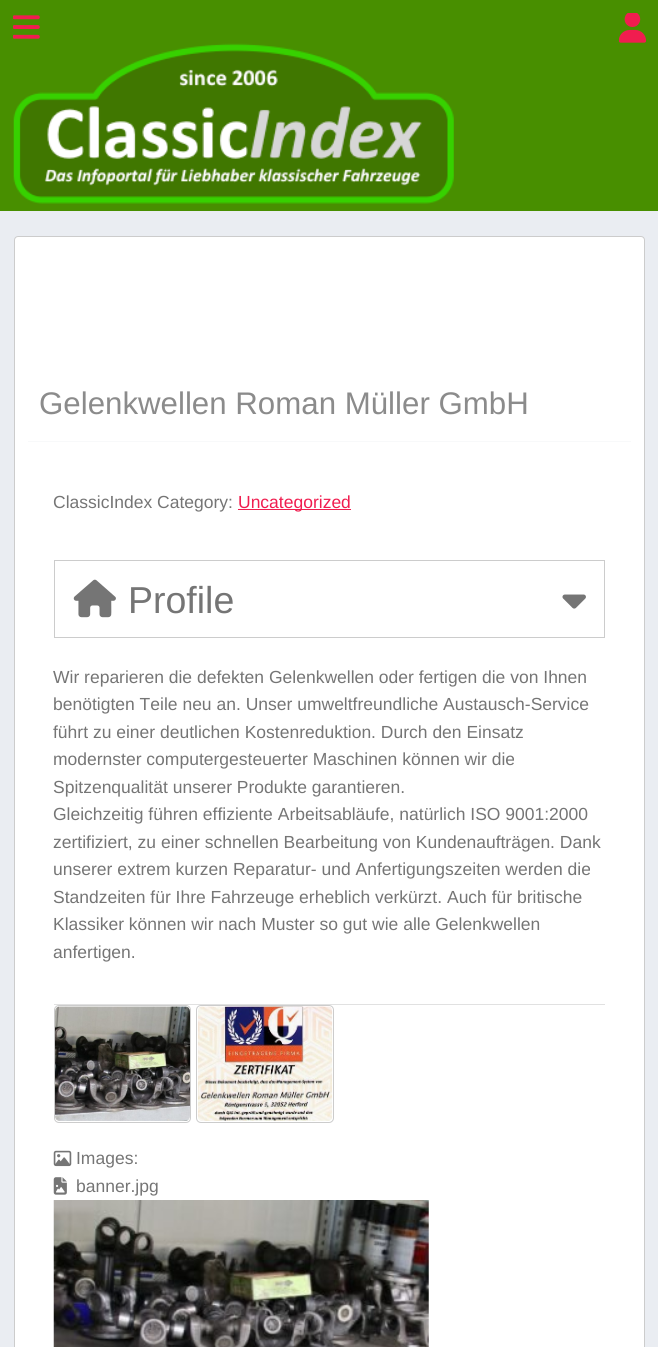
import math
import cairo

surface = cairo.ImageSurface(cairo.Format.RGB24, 658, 1347)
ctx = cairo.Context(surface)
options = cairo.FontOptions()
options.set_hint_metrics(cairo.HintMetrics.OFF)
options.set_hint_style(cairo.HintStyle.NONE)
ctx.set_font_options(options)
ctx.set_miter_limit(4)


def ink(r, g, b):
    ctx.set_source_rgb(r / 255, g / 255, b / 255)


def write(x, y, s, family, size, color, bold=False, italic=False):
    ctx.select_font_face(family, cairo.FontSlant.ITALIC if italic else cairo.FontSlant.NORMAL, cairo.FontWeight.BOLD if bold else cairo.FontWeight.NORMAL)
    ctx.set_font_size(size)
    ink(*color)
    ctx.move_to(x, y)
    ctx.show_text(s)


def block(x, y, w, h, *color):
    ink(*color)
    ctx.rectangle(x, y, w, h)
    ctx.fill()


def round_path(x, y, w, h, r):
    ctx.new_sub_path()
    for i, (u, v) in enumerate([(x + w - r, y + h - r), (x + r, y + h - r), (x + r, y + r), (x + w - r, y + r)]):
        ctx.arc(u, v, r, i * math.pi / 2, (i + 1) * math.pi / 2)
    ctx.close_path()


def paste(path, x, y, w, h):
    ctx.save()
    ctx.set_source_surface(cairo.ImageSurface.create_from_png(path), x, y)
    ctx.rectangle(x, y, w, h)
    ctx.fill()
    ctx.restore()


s1 = dict(family="Liberation Sans", size=31.25, color=(139, 139, 139))
s2 = dict(family="Liberation Sans", size=17.5, color=(117, 117, 117))
s3 = dict(family="Liberation Sans", size=17.5, color=(240, 29, 79))
s4 = dict(family="Liberation Sans", size=37.5, color=(117, 117, 117))

ink(234, 237, 242)
ctx.paint()
block(0, 0, 658, 211, 72, 143, 0)
paste("pic1.png", 13, 15, 27, 24)
paste("pic2.png", 619, 13, 27, 30)
paste("pic3.png", 13, 43, 441, 161)
ink(255, 255, 255)
round_path(14.5, 236.5, 630, 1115, 3.5)
ctx.fill_preserve()
ink(204, 204, 204)
ctx.set_line_width(1)
ctx.stroke()
block(28, 441, 603, 1, 248, 249, 250)
write(39, 414, "Gelenkwellen Roman Müller GmbH", **s1)
write(53, 508, "ClassicIndex Category:", **s2)
block(238, 509, 113, 1, 240, 29, 79)
write(238, 508, "Uncategorized", **s3)
ctx.rectangle(54.5, 560.5, 550, 77)
ink(204, 204, 204)
ctx.stroke()
paste("pic4.png", 73, 579, 43, 39)
write(128, 613, "Profile", **s4)
paste("pic5.png", 562, 594, 24, 15)
block(54, 1004, 551, 1, 225, 225, 225)
write(53, 683, "Wir reparieren die defekten Gelenkwellen oder fertigen die von Ihnen", **s2)
write(53, 710, "benötigten Teile neu an. Unser umweltfreundliche Austausch-Service", **s2)
write(53, 738, "führt zu einer deutlichen Kostenreduktion. Durch den Einsatz", **s2)
write(53, 765, "modernster computergesteuerter Maschinen können wir die", **s2)
write(53, 793, "Spitzenqualität unserer Produkte garantieren.", **s2)
write(53, 820, "Gleichzeitig führen effiziente Arbeitsabläufe, natürlich ISO 9001:2000", **s2)
write(53, 848, "zertifiziert, zu einer schnellen Bearbeitung von Kundenaufträgen. Dank", **s2)
write(53, 875, "unserer extrem kurzen Reparatur- und Anfertigungszeiten werden die", **s2)
write(53, 903, "Standzeiten für Ihre Fahrzeuge erheblich verkürzt. Auch für britische", **s2)
write(53, 930, "Klassiker können wir nach Muster so gut wie alle Gelenkwellen", **s2)
write(53, 958, "anfertigen.", **s2)
round_path(54.5, 1005.5, 136, 117, 4.5)
ink(204, 204, 204)
ctx.stroke()
paste("pic6.png", 55, 1006, 135, 115)
round_path(196.5, 1005.5, 137, 117, 4.5)
ctx.stroke()
paste("pic7.png", 197, 1006, 136, 115)
paste("pic8.png", 53, 1150, 19, 17)
write(76, 1164, "Images:", **s2)
paste("pic9.png", 53, 1177, 14, 18)
write(76, 1192, "banner.jpg", **s2)
paste("pic10.png", 53, 1200, 376, 147)
surface.write_to_png("screenshot.png")
